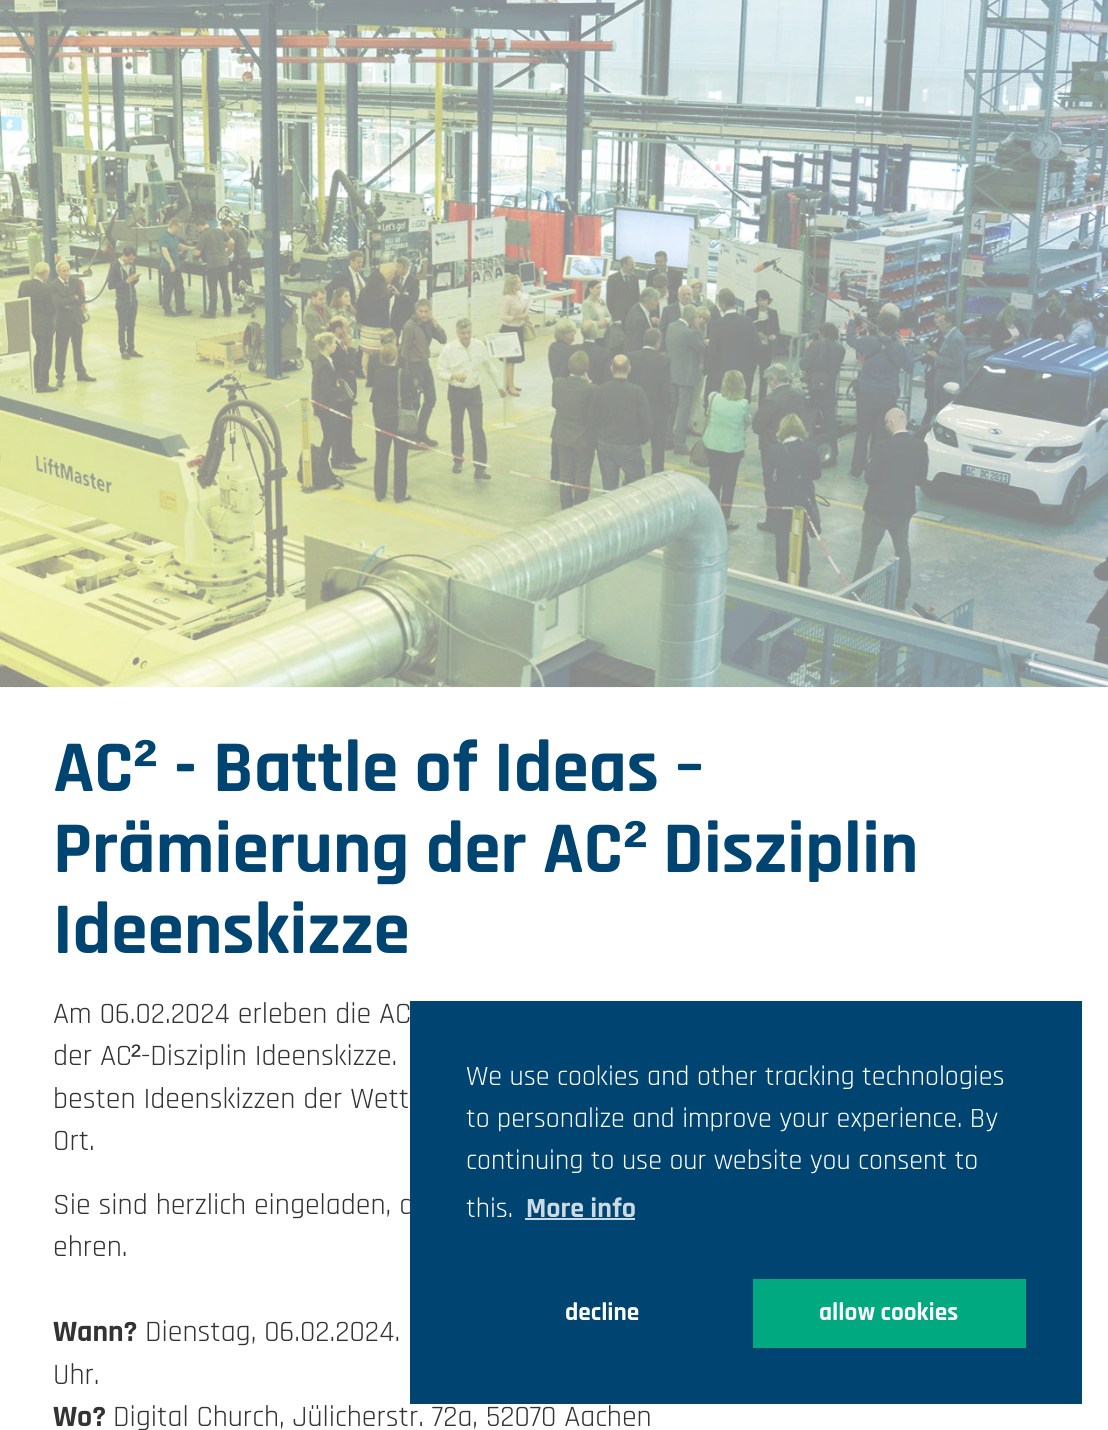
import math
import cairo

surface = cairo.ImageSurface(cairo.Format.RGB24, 1108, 1430)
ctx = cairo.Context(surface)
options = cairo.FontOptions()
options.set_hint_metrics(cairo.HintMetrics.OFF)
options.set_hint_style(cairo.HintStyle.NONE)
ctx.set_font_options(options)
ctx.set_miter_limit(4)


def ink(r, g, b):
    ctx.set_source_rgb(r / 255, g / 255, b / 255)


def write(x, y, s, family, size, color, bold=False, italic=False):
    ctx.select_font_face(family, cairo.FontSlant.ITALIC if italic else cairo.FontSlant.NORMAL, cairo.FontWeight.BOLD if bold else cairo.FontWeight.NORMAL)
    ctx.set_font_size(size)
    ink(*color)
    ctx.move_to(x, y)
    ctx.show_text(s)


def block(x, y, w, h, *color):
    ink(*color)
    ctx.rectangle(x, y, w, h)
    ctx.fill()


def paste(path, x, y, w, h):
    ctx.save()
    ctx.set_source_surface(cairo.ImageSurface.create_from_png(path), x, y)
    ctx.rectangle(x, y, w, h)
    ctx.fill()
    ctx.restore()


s1 = dict(family="Rajdhani", size=73.5, color=(0, 69, 113), bold=True)
s2 = dict(family="Liberation Sans", size=73.5, color=(0, 69, 113), bold=True)
s3 = dict(family="Rajdhani", size=29.75, color=(51, 51, 51))
s4 = dict(family="Liberation Sans", size=29.75, color=(51, 51, 51))
s5 = dict(family="Rajdhani", size=29.75, color=(51, 51, 51), bold=True)
s6 = dict(family="Rajdhani", size=28, color=(255, 255, 255))
s7 = dict(family="Rajdhani", size=28, color=(204, 218, 227), bold=True)
s8 = dict(family="Rajdhani", size=25.25, color=(255, 255, 255), bold=True)

ink(255, 255, 255)
ctx.paint()
paste("pic1.png", 0, 0, 1108, 688)
write(53, 791, "AC", **s1)
write(133, 791, "²", **s2)
write(174, 791, "- Battle of Ideas –", **s1)
write(53, 872, "Prämierung der AC", **s1)
write(623, 872, "²", **s2)
write(663, 872, "Disziplin", **s1)
write(53, 953, "Ideenskizze", **s1)
write(53, 1023, "Am 06.02.2024 erleben die AC", **s3)
write(53, 1065, "der AC", **s3)
write(131, 1065, "²", **s4)
write(141, 1065, "-Disziplin Ideenskizze.", **s3)
write(53, 1108, "besten Ideenskizzen der Wett", **s3)
write(53, 1150, "Ort.", **s3)
write(53, 1214, "Sie sind herzlich eingeladen, d", **s3)
write(53, 1256, "ehren.", **s3)
write(53, 1341, "Wann?", **s5)
write(145, 1341, "Dienstag, 06.02.2024.", **s3)
write(53, 1384, "Uhr.", **s3)
write(53, 1426, "Wo?", **s5)
write(113, 1426, "Digital Church, Jülicherstr. 72a, 52070 Aachen", **s3)
block(410, 1001, 672, 403, 0, 69, 113)
write(466, 1085, "We use cookies and other tracking technologies", **s6)
write(466, 1127, "to personalize and improve your experience. By", **s6)
write(466, 1169, "continuing to use our website you consent to", **s6)
write(466, 1217, "this.", **s6)
write(526, 1217, "More info", **s7)
block(525, 1218, 110, 2, 204, 218, 227)
write(565, 1320, "decline", **s8)
block(753, 1279, 273, 69, 0, 169, 128)
write(819, 1320, "allow cookies", **s8)
surface.write_to_png("screenshot.png")
